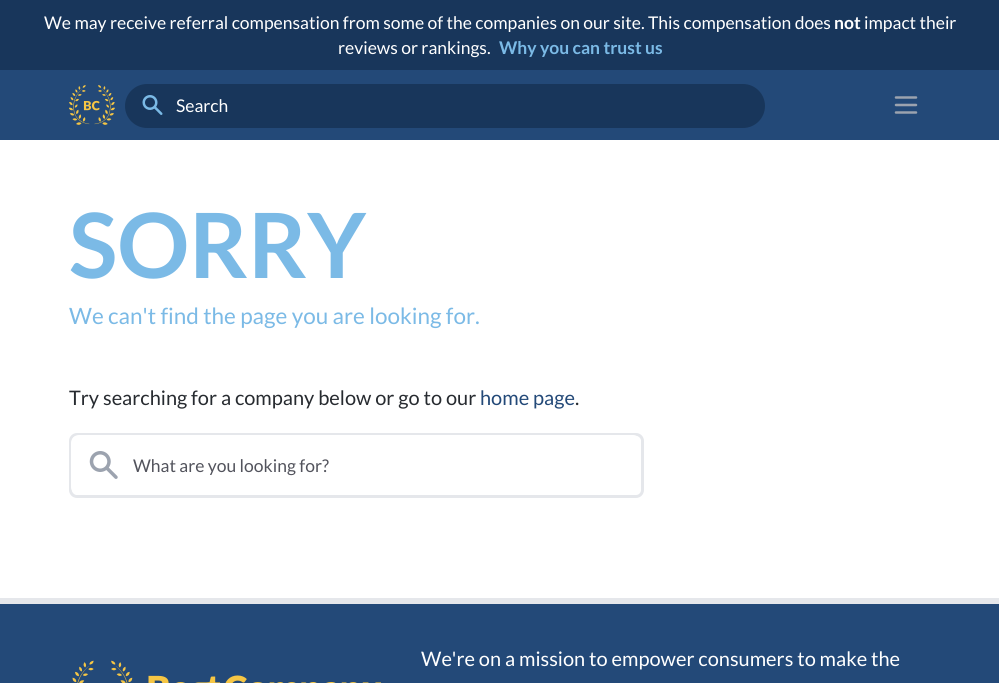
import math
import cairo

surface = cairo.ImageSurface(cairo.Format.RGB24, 999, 683)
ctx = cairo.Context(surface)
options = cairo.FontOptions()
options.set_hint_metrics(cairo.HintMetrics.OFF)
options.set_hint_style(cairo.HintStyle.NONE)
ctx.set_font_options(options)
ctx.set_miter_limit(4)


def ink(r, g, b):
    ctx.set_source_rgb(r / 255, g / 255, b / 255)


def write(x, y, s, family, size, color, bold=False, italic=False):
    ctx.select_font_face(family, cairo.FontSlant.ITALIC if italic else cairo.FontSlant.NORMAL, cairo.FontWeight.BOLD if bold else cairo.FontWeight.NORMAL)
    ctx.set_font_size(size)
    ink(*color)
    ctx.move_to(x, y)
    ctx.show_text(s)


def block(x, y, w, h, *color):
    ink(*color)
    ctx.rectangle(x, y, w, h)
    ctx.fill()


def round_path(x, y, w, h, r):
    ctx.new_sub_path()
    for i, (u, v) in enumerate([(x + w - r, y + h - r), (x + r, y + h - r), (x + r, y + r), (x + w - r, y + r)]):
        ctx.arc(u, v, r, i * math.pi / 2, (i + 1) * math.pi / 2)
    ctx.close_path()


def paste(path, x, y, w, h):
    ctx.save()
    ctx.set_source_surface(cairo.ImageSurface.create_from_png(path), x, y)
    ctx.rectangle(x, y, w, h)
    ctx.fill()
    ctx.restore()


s1 = dict(family="Lato", size=17.5, color=(255, 255, 255))
s2 = dict(family="Lato", size=17.5, color=(255, 255, 255), bold=True)
s3 = dict(family="Lato", size=17.5, color=(123, 186, 230), bold=True)
s4 = dict(family="Lato", size=90, color=(123, 186, 230), bold=True)
s5 = dict(family="Lato", size=22.5, color=(123, 186, 230))
s6 = dict(family="Lato", size=20, color=(39, 43, 48))
s7 = dict(family="Lato", size=20, color=(35, 73, 120))
s8 = dict(family="Lato", size=17.5, color=(82, 83, 92))
s9 = dict(family="Lato", size=20, color=(255, 255, 255))

ink(255, 255, 255)
ctx.paint()
block(0, 0, 999, 70, 24, 54, 91)
write(44, 29, "We may receive referral compensation from some of the companies on our site. This compensation does", **s1)
write(834, 29, "not", **s2)
write(864, 29, "impact their", **s1)
write(338, 54, "reviews or rankings.", **s1)
write(499, 54, "Why you can trust us", **s3)
block(0, 70, 999, 70, 35, 73, 120)
paste("pic1.png", 69, 85, 46, 40)
ink(24, 54, 91)
round_path(125, 84, 640, 44, 22)
ctx.fill()
paste("pic2.png", 142, 95, 21, 20)
write(176, 112, "Search", **s1)
ctx.new_path()
ctx.move_to(896, 97.5)
ctx.line_to(916, 97.5)
ctx.move_to(896, 105)
ctx.line_to(916, 105)
ctx.move_to(896, 112.5)
ctx.line_to(916, 112.5)
ink(156, 163, 175)
ctx.set_line_width(2.5)
ctx.set_line_cap(cairo.LineCap.ROUND)
ctx.set_line_join(cairo.LineJoin.ROUND)
ctx.stroke()
write(69, 278, "SORRY", **s4)
write(69, 324, "We can't find the page you are looking for.", **s5)
write(69, 405, "Try searching for a company below or go to our", **s6)
write(480, 405, "home page", **s7)
write(575, 405, ".", **s6)
round_path(70.5, 434.5, 572, 62, 6.5)
ink(229, 231, 235)
ctx.set_line_width(3)
ctx.set_line_cap(cairo.LineCap.BUTT)
ctx.set_line_join(cairo.LineJoin.MITER)
ctx.stroke()
ink(255, 255, 255)
round_path(71, 435, 570, 60, 8)
ctx.fill()
paste("pic3.png", 89, 451, 29, 28)
write(133, 472, "What are you looking for?", **s8)
block(0, 604, 999, 79, 35, 73, 120)
block(0, 598, 999, 6, 229, 231, 235)
paste("pic4.png", 72, 660, 309, 23)
write(421, 666, "We're on a mission to empower consumers to make the", **s9)
surface.write_to_png("screenshot.png")
